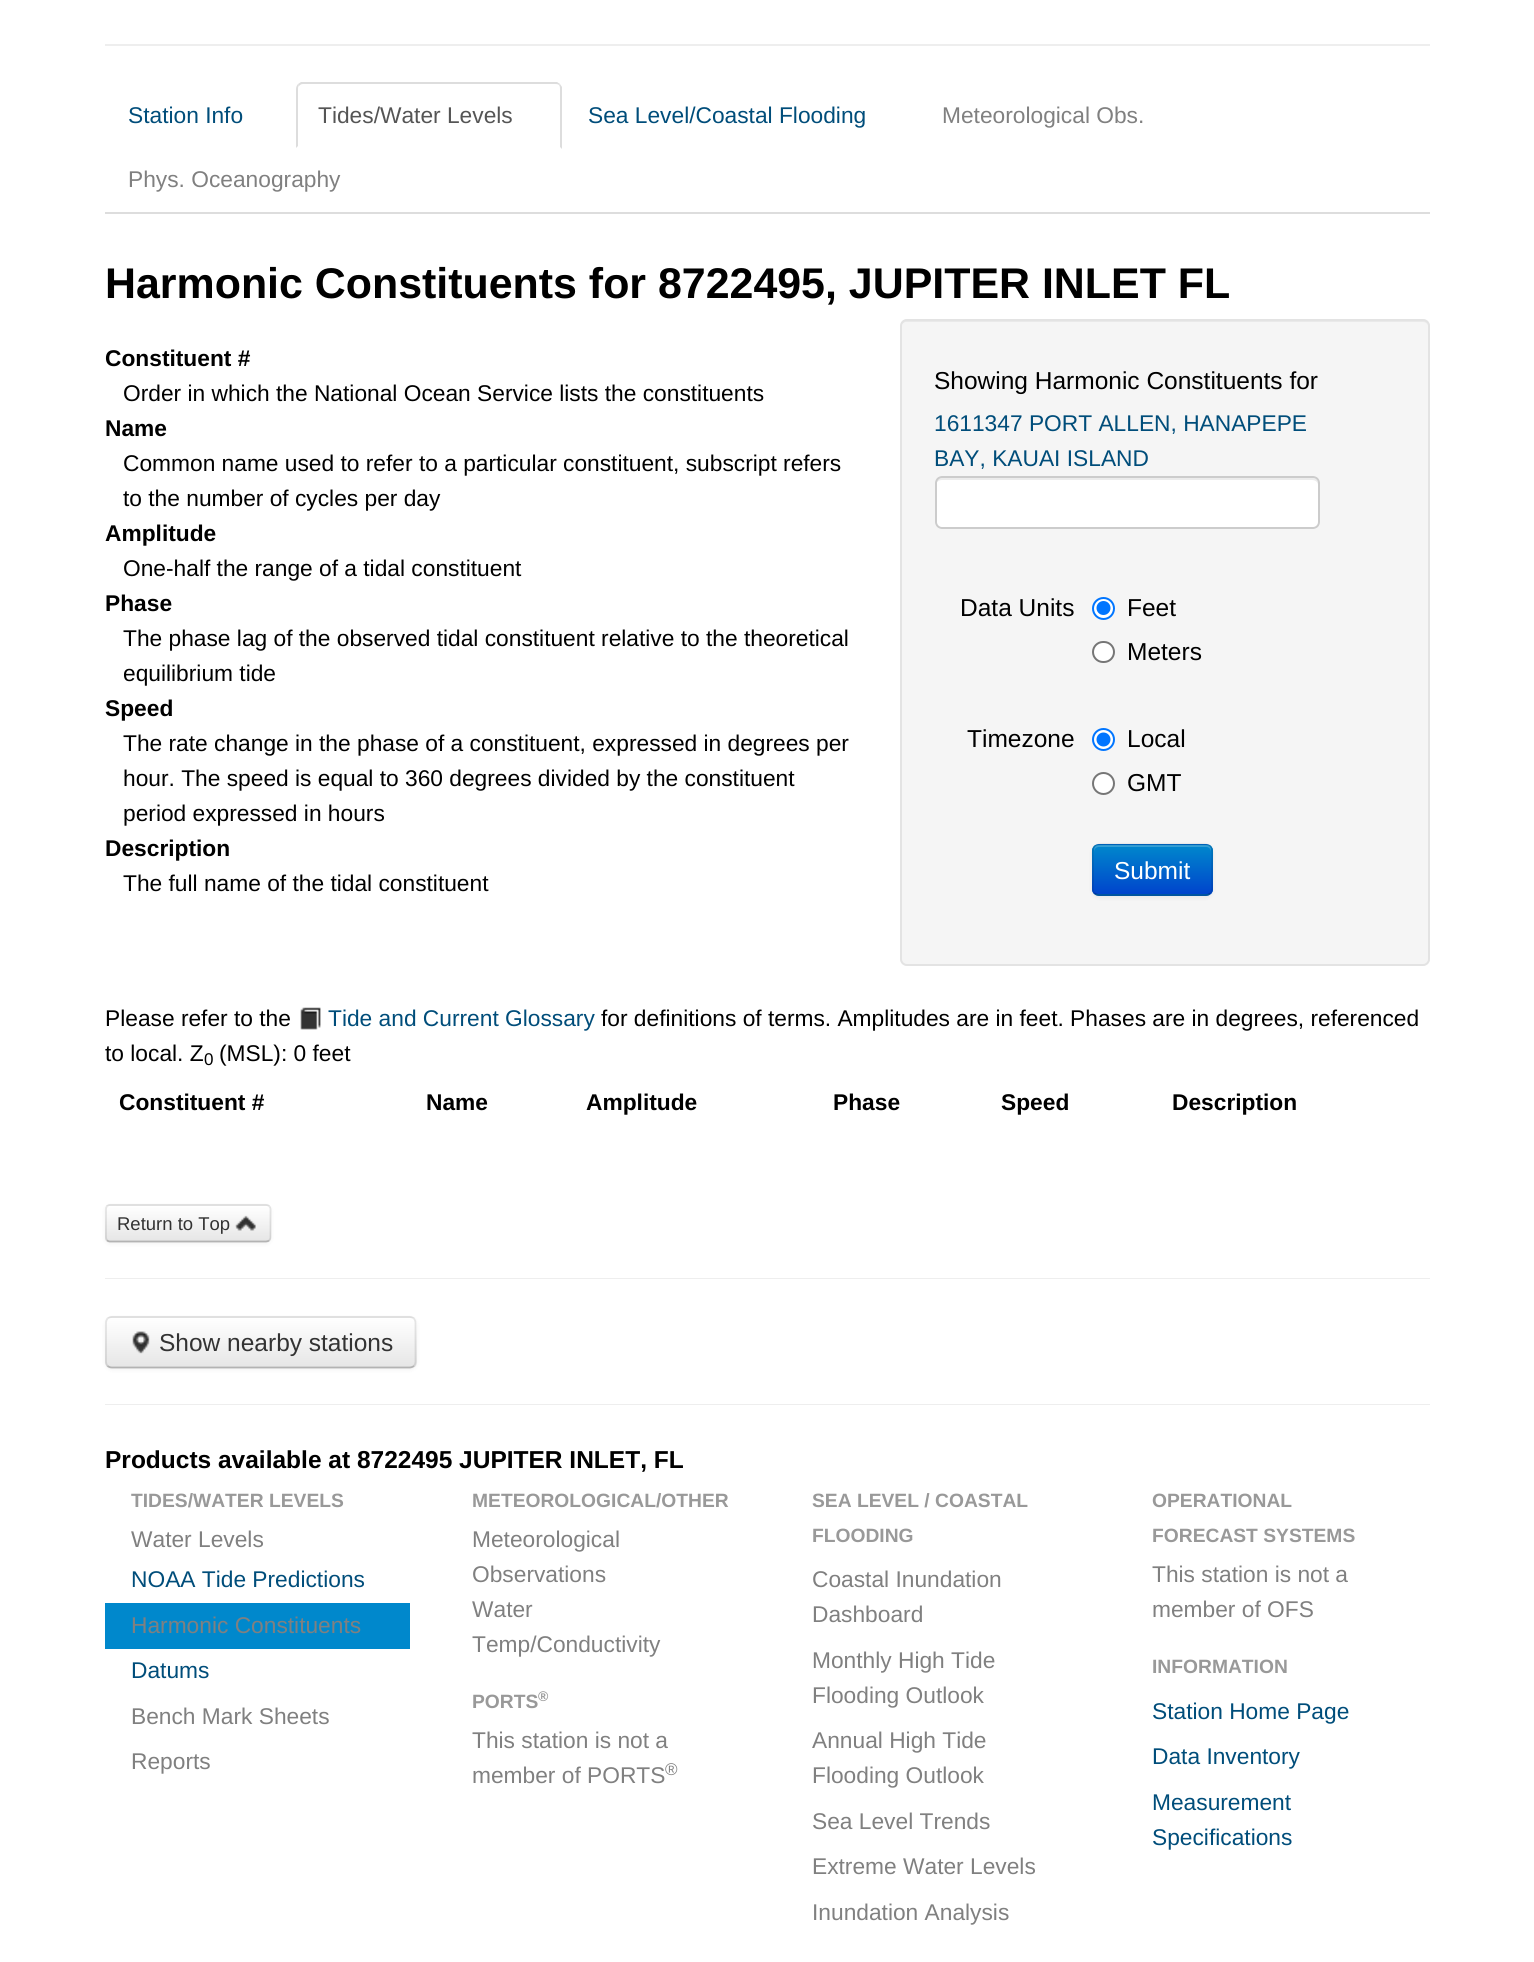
import math
import cairo

surface = cairo.ImageSurface(cairo.Format.RGB24, 1534, 1962)
ctx = cairo.Context(surface)
options = cairo.FontOptions()
options.set_hint_metrics(cairo.HintMetrics.OFF)
options.set_hint_style(cairo.HintStyle.NONE)
ctx.set_font_options(options)
ctx.set_miter_limit(4)


def ink(r, g, b):
    ctx.set_source_rgb(r / 255, g / 255, b / 255)


def write(x, y, s, family, size, color, bold=False, italic=False):
    ctx.select_font_face(family, cairo.FontSlant.ITALIC if italic else cairo.FontSlant.NORMAL, cairo.FontWeight.BOLD if bold else cairo.FontWeight.NORMAL)
    ctx.set_font_size(size)
    ink(*color)
    ctx.move_to(x, y)
    ctx.show_text(s)


def block(x, y, w, h, *color):
    ink(*color)
    ctx.rectangle(x, y, w, h)
    ctx.fill()


def round_path(x, y, w, h, r):
    ctx.new_sub_path()
    for i, (u, v) in enumerate([(x + w - r, y + h - r), (x + r, y + h - r), (x + r, y + r), (x + w - r, y + r)]):
        ctx.arc(u, v, r, i * math.pi / 2, (i + 1) * math.pi / 2)
    ctx.close_path()


def blur_box(x, y, w, h, r, blur, alpha):
    ctx.push_group_with_content(cairo.Content.ALPHA)
    ctx.set_operator(cairo.Operator.SOURCE)
    for i in range(15, -16, -2):
        e = blur * i / 6
        if min(w, h) + 2 * e > 0:
            ctx.set_source_rgba(0, 0, 0, alpha * math.erfc((i - 1) / 8.5) / 2)
            round_path(x - e, y - e, w + 2 * e, h + 2 * e, max(0, min(r + e + blur * .6, min(w, h) / 2 + e)))
            ctx.fill()
    ctx.mask(ctx.pop_group())


def paste(path, x, y, w, h):
    ctx.save()
    ctx.set_source_surface(cairo.ImageSurface.create_from_png(path), x, y)
    ctx.rectangle(x, y, w, h)
    ctx.fill()
    ctx.restore()


s1 = dict(family="Liberation Sans", size=22.75, color=(0, 77, 122))
s2 = dict(family="Liberation Sans", size=22.75, color=(85, 85, 85))
s3 = dict(family="Liberation Sans", size=22.75, color=(128, 128, 128))
s4 = dict(family="Liberation Sans", size=42.9, color=(0, 0, 0), bold=True)
s5 = dict(family="Liberation Sans", size=22.75, color=(0, 0, 0), bold=True)
s6 = dict(family="Liberation Sans", size=22.75, color=(0, 0, 0))
s7 = dict(family="Liberation Sans", size=24.5, color=(0, 0, 0))
s8 = dict(family="Liberation Sans", size=24.5, color=(255, 255, 255))
s9 = dict(family="Liberation Sans", size=17, color=(0, 0, 0))
s10 = dict(family="Liberation Sans", size=18.5, color=(51, 51, 51))
s11 = dict(family="Liberation Sans", size=24.5, color=(51, 51, 51))
s12 = dict(family="Liberation Sans", size=24.5, color=(0, 0, 0), bold=True)
s13 = dict(family="Liberation Sans", size=19.25, color=(153, 153, 153), bold=True)
s14 = dict(family="Liberation Sans", size=14, color=(153, 153, 153), bold=True)
s15 = dict(family="Liberation Sans", size=17, color=(128, 128, 128))

ink(255, 255, 255)
ctx.paint()
block(105, 44, 1325, 2, 238, 238, 238)
block(105, 212, 1325, 2, 221, 221, 221)
write(128, 123, "Station Info", **s1)
ink(221, 221, 221)
ctx.new_path()
ctx.move_to(303, 84)
ctx.curve_to(301, 84, 300, 85, 299, 86)
ctx.line_to(298, 84)
ctx.line_to(301, 82)
ctx.line_to(557, 82)
ctx.line_to(560, 84)
ctx.line_to(559, 85)
ctx.curve_to(558, 84, 556, 84, 555, 84)
ctx.close_path()
ctx.fill()
ctx.new_path()
ctx.move_to(560, 84)
ctx.line_to(562, 87)
ctx.line_to(562, 149)
ctx.line_to(560, 147)
ctx.line_to(560, 89)
ctx.curve_to(560, 88, 560, 86, 559, 85)
ctx.close_path()
ctx.fill()
ctx.new_path()
ctx.move_to(296, 148)
ctx.line_to(296, 89)
ctx.curve_to(296, 87, 297, 85, 298, 84)
ctx.line_to(299, 86)
ctx.curve_to(298, 86, 298, 88, 298, 89)
ctx.line_to(298, 146)
ctx.close_path()
ctx.fill()
write(318, 123, "Tides/Water Levels", **s2)
write(588, 123, "Sea Level/Coastal Flooding", **s1)
write(942, 123, "Meteorological Obs.", **s3)
write(128, 187, "Phys. Oceanography", **s3)
write(105, 298, "Harmonic Constituents for 8722495, JUPITER INLET FL", **s4)
write(105, 366, "Constituent #", **s5)
write(123, 401, "Order in which the National Ocean Service lists the constituents", **s6)
write(105, 436, "Name", **s5)
write(123, 471, "Common name used to refer to a particular constituent, subscript refers", **s6)
write(123, 506, "to the number of cycles per day", **s6)
write(105, 541, "Amplitude", **s5)
write(123, 576, "One-half the range of a tidal constituent", **s6)
write(105, 611, "Phase", **s5)
write(123, 646, "The phase lag of the observed tidal constituent relative to the theoretical", **s6)
write(123, 681, "equilibrium tide", **s6)
write(105, 716, "Speed", **s5)
write(123, 751, "The rate change in the phase of a constituent, expressed in degrees per", **s6)
write(123, 786, "hour. The speed is equal to 360 degrees divided by the constituent", **s6)
write(123, 821, "period expressed in hours", **s6)
write(105, 856, "Description", **s5)
write(123, 891, "The full name of the tidal constituent", **s6)
ink(245, 245, 245)
round_path(900, 319, 530, 647, 7)
ctx.fill()
ink(233, 233, 233)
ctx.new_path()
ctx.move_to(906, 322)
ctx.line_to(1423, 322)
ctx.curve_to(1426, 322, 1428, 324, 1428, 327)
ctx.curve_to(1428, 324, 1427, 320, 1423, 320)
ctx.line_to(906, 320)
ctx.curve_to(902, 320, 901, 324, 901, 327)
ctx.curve_to(901, 324, 904, 322, 906, 322)
ctx.close_path()
ctx.fill()
round_path(901, 320, 528, 645, 6)
ink(227, 227, 227)
ctx.stroke()
write(934, 389, "Showing Harmonic Constituents for", **s7)
write(934, 431, "1611347 PORT ALLEN, HANAPEPE", **s1)
write(934, 466, "BAY, KAUAI ISLAND", **s1)
ink(255, 255, 255)
round_path(935, 476, 385, 53, 7)
ctx.fill()
ink(236, 236, 236)
ctx.new_path()
ctx.move_to(942, 480)
ctx.line_to(1312, 480)
ctx.curve_to(1315, 480, 1318, 482, 1318, 485)
ctx.line_to(1318, 483)
ctx.curve_to(1318, 480, 1316, 478, 1313, 478)
ctx.line_to(941, 478)
ctx.curve_to(938, 478, 936, 480, 936, 483)
ctx.line_to(936, 485)
ctx.curve_to(936, 482, 939, 480, 942, 480)
ctx.close_path()
ctx.fill()
round_path(936, 477, 383, 51, 6)
ink(204, 204, 204)
ctx.stroke()
write(960, 616, "Data Units", **s7)
ink(255, 255, 255)
ctx.new_path()
ctx.arc(1103.5, 608.5, 10.5, 0, 2 * math.pi)
ctx.fill_preserve()
ink(0, 117, 255)
ctx.stroke()
ctx.arc(1103.5, 608, 7, 0, 2 * math.pi)
ctx.fill()
write(1127, 616, "Feet", **s7)
ink(255, 255, 255)
round_path(1093, 642, 21, 20, 10)
ctx.fill_preserve()
ink(118, 118, 118)
ctx.stroke()
write(1127, 660, "Meters", **s7)
write(967, 747, "Timezone", **s7)
ink(255, 255, 255)
ctx.new_path()
ctx.arc(1103.5, 739.5, 10.5, 0, 2 * math.pi)
ctx.fill_preserve()
ink(0, 117, 255)
ctx.stroke()
ctx.arc(1103.5, 739.5, 7, 0, 2 * math.pi)
ctx.fill()
write(1127, 747, "Local", **s7)
ink(255, 255, 255)
ctx.new_path()
ctx.arc(1103.5, 783.5, 10.5, 0, 2 * math.pi)
ctx.fill_preserve()
ink(118, 118, 118)
ctx.stroke()
write(1127, 791, "GMT", **s7)
ink(0, 0, 0)
blur_box(1092, 845, 121, 53, 7, 2, 0.05)
ink(0, 109, 204)
round_path(1092, 844, 121, 52, 7)
ctx.fill()
ctx.save()
round_path(1092, 844, 121, 52, 7)
ctx.clip()
gradient = cairo.LinearGradient(1152, 845, 1152, 894)
gradient.add_color_stop_rgba(0, 0, 0.533, 0.8, 1)
gradient.add_color_stop_rgba(1, 0, 0.267, 0.8, 1)
ctx.set_source(gradient)
ctx.rectangle(1092, 845, 121, 49)
ctx.fill()
ctx.restore()
ctx.set_source_rgba(1, 1, 1, 0.2)
ctx.new_path()
ctx.move_to(1099, 847)
ctx.line_to(1206, 847)
ctx.curve_to(1209, 847, 1211, 849, 1211, 852)
ctx.line_to(1211, 850)
ctx.curve_to(1211, 847, 1209, 845, 1206, 845)
ctx.line_to(1099, 845)
ctx.curve_to(1096, 845, 1094, 847, 1094, 850)
ctx.line_to(1094, 852)
ctx.curve_to(1094, 849, 1096, 847, 1099, 847)
ctx.close_path()
ctx.fill()
ctx.new_path()
ctx.move_to(1210, 893.5)
ctx.curve_to(1209, 894.5, 1207.5, 895, 1206, 895)
ctx.line_to(1099, 895)
ctx.curve_to(1097.5, 895, 1096, 894.5, 1094.5, 893.5)
ctx.set_source_rgba(0, 0, 0, 0.25)
ctx.set_line_width(1.8)
ctx.stroke()
ctx.new_path()
ctx.move_to(1094.5, 893.5)
ctx.curve_to(1092, 890.5, 1093, 886, 1093, 882.5)
ctx.line_to(1093, 870)
ctx.curve_to(1093, 841.5, 1088.5, 844.5, 1117, 844.5)
ctx.line_to(1188, 844.5)
ctx.curve_to(1216.5, 844.5, 1212, 841.5, 1212, 870)
ctx.line_to(1212, 882.5)
ctx.curve_to(1212, 886, 1213, 890.5, 1210, 893.5)
ctx.set_source_rgba(0, 0, 0, 0.1)
ctx.stroke()
write(1114, 879, "Submit", **s8)
write(105, 1026, "Please refer to the", **s6)
paste("pic1.png", 300, 1007, 21, 23)
write(328, 1026, "Tide and Current Glossary", **s1)
write(601, 1026, "for definitions of terms. Amplitudes are in feet. Phases are in degrees, referenced", **s6)
write(105, 1061, "to local. Z", **s6)
write(204, 1065, "0", **s9)
write(219, 1061, "(MSL): 0 feet", **s6)
write(119, 1110, "Constituent #", **s5)
write(426, 1110, "Name", **s5)
write(586, 1110, "Amplitude", **s5)
write(833, 1110, "Phase", **s5)
write(1001, 1110, "Speed", **s5)
write(1172, 1110, "Description", **s5)
ink(0, 0, 0)
blur_box(105, 1206, 166, 38, 5, 2, 0.05)
ink(245, 245, 245)
round_path(105, 1204, 166, 39, 5)
ctx.fill()
ctx.save()
round_path(105, 1204, 166, 39, 5)
ctx.clip()
gradient = cairo.LinearGradient(188, 1206, 188, 1241)
gradient.add_color_stop_rgba(0, 1, 1, 1, 1)
gradient.add_color_stop_rgba(1, 0.902, 0.902, 0.902, 1)
ctx.set_source(gradient)
ctx.rectangle(105, 1206, 166, 35)
ctx.fill()
ctx.restore()
ctx.new_path()
ctx.move_to(269, 1240.5)
ctx.curve_to(268.5, 1241, 267, 1241.5, 266, 1241.5)
ctx.line_to(110, 1241.5)
ctx.curve_to(109, 1241.5, 108, 1241, 107, 1240.5)
ink(179, 179, 179)
ctx.stroke()
ctx.new_path()
ctx.move_to(107, 1240.5)
ctx.curve_to(106.5, 1239.5, 106, 1238.5, 106, 1237)
ctx.line_to(106, 1209)
ctx.curve_to(106, 1208, 106.5, 1207, 107, 1206)
ctx.curve_to(108, 1205.5, 109, 1205, 110, 1205)
ctx.line_to(266, 1205)
ctx.curve_to(267, 1205, 268.5, 1205.5, 269, 1206)
ctx.curve_to(270, 1207, 270.5, 1208, 270.5, 1209)
ctx.line_to(270.5, 1237)
ctx.curve_to(270.5, 1238.5, 270, 1239.5, 269, 1240.5)
ctx.set_source_rgba(0, 0, 0, 0.1)
ctx.stroke()
write(117, 1230, "Return to Top", **s10)
paste("pic2.png", 235, 1215, 21, 16)
block(105, 1278, 1325, 1, 238, 238, 238)
ink(0, 0, 0)
blur_box(105, 1318, 312, 52, 7, 2, 0.05)
ink(245, 245, 245)
round_path(105, 1316, 312, 53, 7)
ctx.fill()
ctx.save()
round_path(105, 1316, 312, 53, 7)
ctx.clip()
gradient = cairo.LinearGradient(261, 1318, 261, 1367)
gradient.add_color_stop_rgba(0, 1, 1, 1, 1)
gradient.add_color_stop_rgba(1, 0.902, 0.902, 0.902, 1)
ctx.set_source(gradient)
ctx.rectangle(105, 1318, 312, 49)
ctx.fill()
ctx.restore()
ctx.new_path()
ctx.move_to(414, 1366)
ctx.curve_to(412.5, 1367, 411, 1367.5, 409.5, 1367.5)
ctx.line_to(112, 1367.5)
ctx.curve_to(110.5, 1367.5, 109, 1367, 107.5, 1366)
ink(179, 179, 179)
ctx.stroke()
ctx.new_path()
ctx.move_to(107.5, 1366)
ctx.curve_to(106.5, 1364.5, 106, 1363, 106, 1361.5)
ctx.line_to(106, 1323)
ctx.curve_to(106, 1321.5, 106.5, 1320, 107.5, 1318.5)
ctx.curve_to(109, 1317.5, 110.5, 1317, 112, 1317)
ctx.line_to(409.5, 1317)
ctx.curve_to(411, 1317, 412.5, 1317.5, 414, 1318.5)
ctx.curve_to(415, 1320, 415.5, 1321.5, 415.5, 1323)
ctx.line_to(415.5, 1361.5)
ctx.curve_to(415.5, 1363, 415, 1364.5, 414, 1366)
ctx.set_source_rgba(0, 0, 0, 0.1)
ctx.stroke()
paste("pic3.png", 132, 1331, 18, 23)
write(159, 1351, "Show nearby stations", **s11)
block(105, 1404, 1325, 1, 238, 238, 238)
write(105, 1468, "Products available at 8722495 JUPITER INLET, FL", **s12)
write(131, 1507, "TIDES/WATER LEVELS", **s13)
write(131, 1547, "Water Levels", **s3)
write(131, 1587, "NOAA Tide Predictions", **s1)
block(105, 1603, 305, 46, 0, 136, 204)
write(131, 1633, "Harmonic Constituents", **s3)
write(131, 1678, "Datums", **s1)
write(131, 1724, "Bench Mark Sheets", **s3)
write(131, 1769, "Reports", **s3)
write(472, 1507, "METEOROLOGICAL/OTHER", **s13)
write(472, 1547, "Meteorological", **s3)
write(472, 1582, "Observations", **s3)
write(472, 1617, "Water", **s3)
write(472, 1652, "Temp/Conductivity", **s3)
write(472, 1708, "PORTS", **s13)
write(538, 1701, "®", **s14)
write(472, 1748, "This station is not a", **s3)
write(472, 1783, "member of PORTS", **s3)
write(665, 1775, "®", **s15)
write(812, 1507, "SEA LEVEL / COASTAL", **s13)
write(812, 1542, "FLOODING", **s13)
write(812, 1587, "Coastal Inundation", **s3)
write(812, 1622, "Dashboard", **s3)
write(812, 1668, "Monthly High Tide", **s3)
write(812, 1703, "Flooding Outlook", **s3)
write(812, 1748, "Annual High Tide", **s3)
write(812, 1783, "Flooding Outlook", **s3)
write(812, 1829, "Sea Level Trends", **s3)
write(812, 1874, "Extreme Water Levels", **s3)
write(812, 1920, "Inundation Analysis", **s3)
write(1152, 1507, "OPERATIONAL", **s13)
write(1152, 1542, "FORECAST SYSTEMS", **s13)
write(1152, 1582, "This station is not a", **s3)
write(1152, 1617, "member of OFS", **s3)
write(1152, 1673, "INFORMATION", **s13)
write(1152, 1719, "Station Home Page", **s1)
write(1152, 1764, "Data Inventory", **s1)
write(1152, 1810, "Measurement", **s1)
write(1152, 1845, "Specifications", **s1)
surface.write_to_png("screenshot.png")
